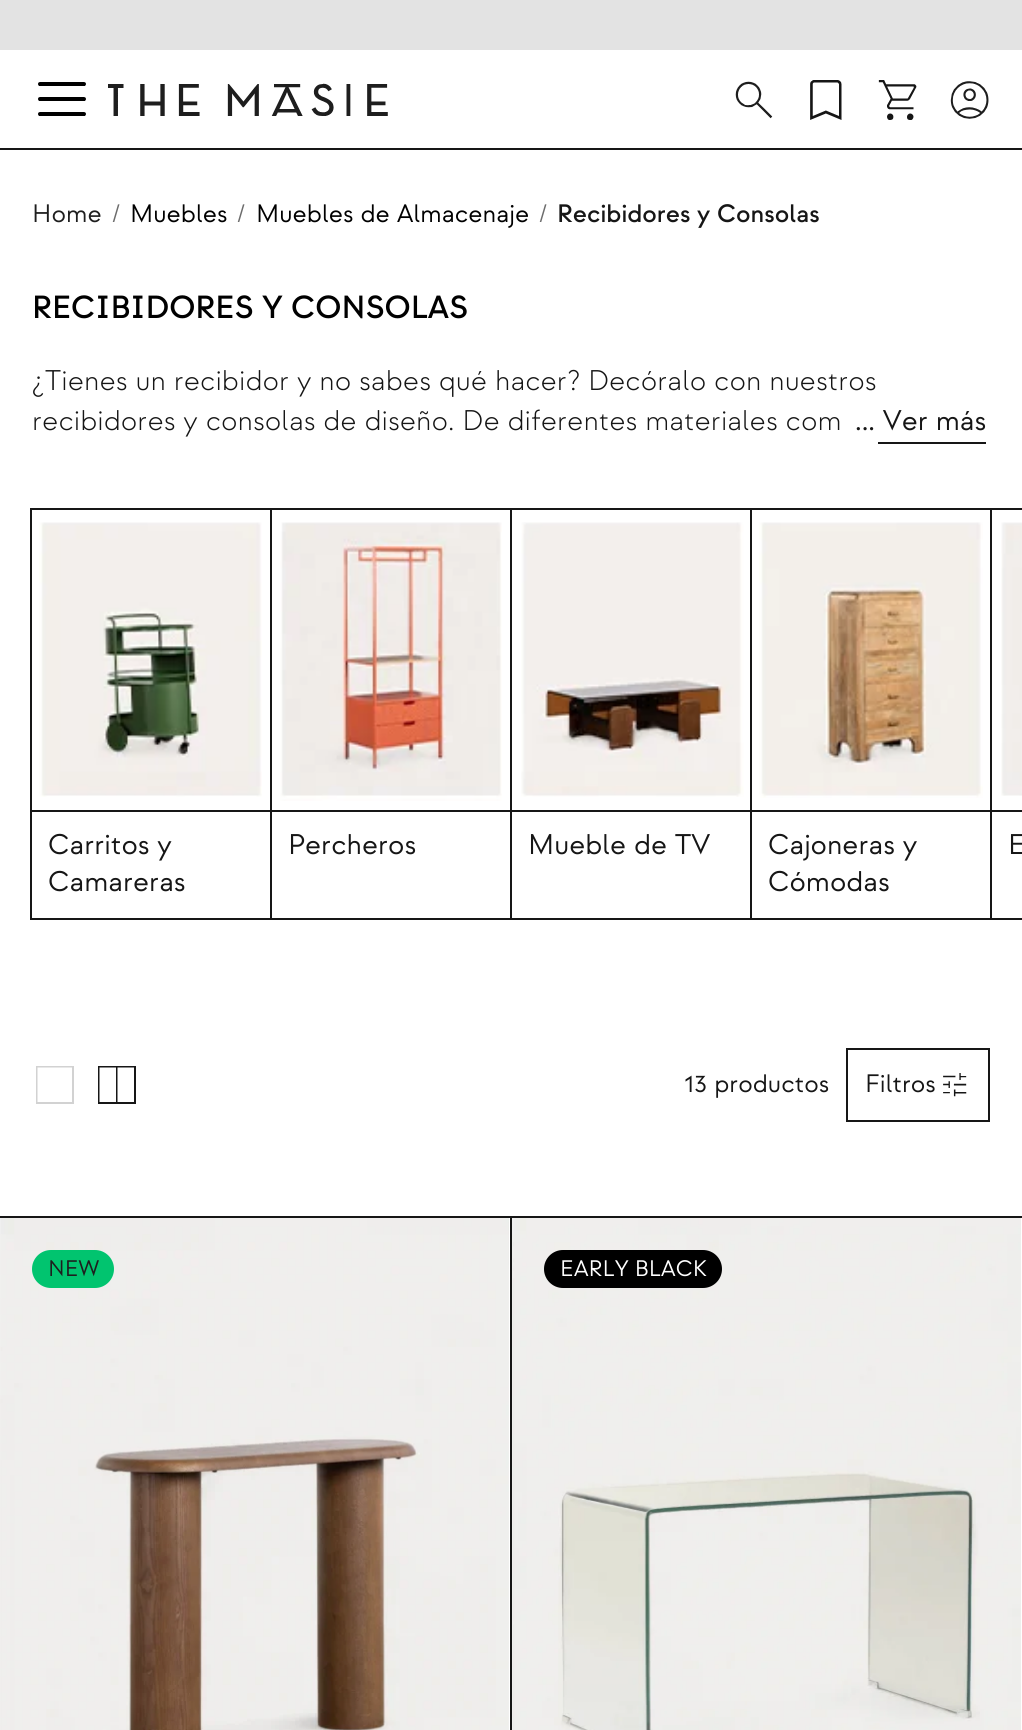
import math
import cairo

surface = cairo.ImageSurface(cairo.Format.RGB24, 1022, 1730)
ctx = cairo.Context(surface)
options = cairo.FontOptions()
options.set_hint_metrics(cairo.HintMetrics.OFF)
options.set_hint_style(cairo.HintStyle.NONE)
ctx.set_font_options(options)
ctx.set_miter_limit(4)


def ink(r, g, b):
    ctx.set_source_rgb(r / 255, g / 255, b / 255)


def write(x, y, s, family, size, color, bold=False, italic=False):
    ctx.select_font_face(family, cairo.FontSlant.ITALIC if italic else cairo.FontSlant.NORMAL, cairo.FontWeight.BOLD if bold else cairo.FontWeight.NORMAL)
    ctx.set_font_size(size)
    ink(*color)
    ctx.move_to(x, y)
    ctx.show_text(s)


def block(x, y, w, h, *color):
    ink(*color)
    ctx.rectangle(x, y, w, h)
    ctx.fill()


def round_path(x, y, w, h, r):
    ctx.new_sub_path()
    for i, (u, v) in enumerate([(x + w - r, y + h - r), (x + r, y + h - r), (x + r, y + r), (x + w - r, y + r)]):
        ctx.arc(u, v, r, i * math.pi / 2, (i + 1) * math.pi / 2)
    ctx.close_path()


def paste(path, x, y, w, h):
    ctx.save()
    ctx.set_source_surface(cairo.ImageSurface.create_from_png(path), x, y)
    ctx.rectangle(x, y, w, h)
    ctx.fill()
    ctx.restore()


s1 = dict(family="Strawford", size=25.25, color=(30, 30, 30))
s2 = dict(family="Strawford", size=25.25, color=(108, 108, 108))
s3 = dict(family="Strawford", size=25.25, color=(0, 0, 0))
s4 = dict(family="Strawford Medium", size=25.25, color=(22, 22, 22))
s5 = dict(family="Strawford Medium", size=32, color=(0, 0, 0))
s6 = dict(family="Strawford Light", size=28.45, color=(22, 22, 22))
s7 = dict(family="Strawford", size=28.45, color=(22, 22, 22))
s8 = dict(family="Strawford", size=25.25, color=(22, 22, 22))
s9 = dict(family="Strawford", size=22.5, color=(30, 30, 30))
s10 = dict(family="Strawford", size=22.5, color=(255, 255, 255))

ink(255, 255, 255)
ctx.paint()
block(0, 0, 1022, 50, 227, 227, 227)
block(0, 148, 1022, 2, 22, 22, 22)
paste("pic1.png", 38, 82, 48, 34)
paste("pic2.png", 108, 83, 280, 33)
paste("pic3.png", 735, 81, 38, 38)
paste("pic4.png", 810, 80, 32, 40)
paste("pic5.png", 878, 80, 39, 40)
paste("pic6.png", 950, 81, 39, 38)
write(32, 222, "Home", **s1)
write(112, 222, "/", **s2)
write(130, 222, "Muebles", **s3)
write(237, 222, "/", **s2)
write(256, 222, "Muebles de Almacenaje", **s3)
write(539, 222, "/", **s2)
write(557, 222, "Recibidores y Consolas", **s4)
write(32, 318, "RECIBIDORES Y CONSOLAS", **s5)
write(32, 390, "¿Tienes un recibidor y no sabes qué hacer? Decóralo con nuestros", **s6)
write(32, 430, "recibidores y consolas de diseño. De diferentes materiales com", **s6)
block(878, 442, 108, 2, 22, 22, 22)
write(855, 430, "... Ver más", **s7)
block(30, 508, 2, 412, 22, 22, 22)
block(32, 508, 990, 2, 22, 22, 22)
block(32, 918, 990, 2, 22, 22, 22)
block(32, 810, 990, 2, 22, 22, 22)
paste("pic7.png", 39, 522, 223, 275)
write(48, 854, "Carritos y", **s7)
write(48, 891, "Camareras", **s7)
block(270, 508, 2, 412, 22, 22, 22)
paste("pic8.png", 280, 522, 222, 279)
write(288, 854, "Percheros", **s7)
block(510, 508, 2, 412, 22, 22, 22)
paste("pic9.png", 521, 522, 223, 275)
write(528, 854, "Mueble de TV", **s7)
block(750, 508, 2, 412, 22, 22, 22)
paste("pic10.png", 759, 522, 224, 276)
write(768, 854, "Cajoneras y", **s7)
write(768, 891, "Cómodas", **s7)
block(990, 508, 2, 412, 22, 22, 22)
paste("pic11.png", 1001, 522, 21, 274)
write(1008, 854, "E", **s7)
ink(210, 210, 210)
ctx.set_fill_rule(cairo.FillRule.EVEN_ODD)
ctx.new_path()
ctx.move_to(72, 1067.5)
ctx.line_to(37.5, 1067.5)
ctx.line_to(37.5, 1102)
ctx.line_to(72, 1102)
ctx.close_path()
ctx.move_to(36, 1066)
ctx.line_to(36, 1104)
ctx.line_to(74, 1104)
ctx.line_to(74, 1066)
ctx.close_path()
ctx.fill()
ink(22, 22, 22)
ctx.new_path()
ctx.move_to(117.5, 1067.5)
ctx.line_to(134, 1067.5)
ctx.line_to(134, 1102)
ctx.line_to(117.5, 1102)
ctx.close_path()
ctx.move_to(116, 1066)
ctx.line_to(136, 1066)
ctx.line_to(136, 1104)
ctx.line_to(98, 1104)
ctx.line_to(98, 1066)
ctx.close_path()
ctx.move_to(116, 1102)
ctx.line_to(99.5, 1102)
ctx.line_to(99.5, 1067.5)
ctx.line_to(116, 1067.5)
ctx.close_path()
ctx.fill()
write(684, 1092, "13 productos", **s8)
ctx.rectangle(847, 1049, 142, 72)
ctx.stroke()
write(865, 1092, "Filtros", **s8)
paste("pic12.png", 943, 1073, 24, 24)
block(0, 1216, 2, 2, 22, 22, 22)
ctx.set_fill_rule(cairo.FillRule.WINDING)
ctx.new_path()
ctx.move_to(2, 1216)
ctx.line_to(2, 1218)
ctx.line_to(510, 1218)
ctx.line_to(510, 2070)
ctx.line_to(512, 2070)
ctx.line_to(512, 1216)
ctx.close_path()
ctx.fill()
paste("pic13.png", 0, 1218, 509, 512)
ink(1, 196, 111)
round_path(32, 1250, 82, 38, 19)
ctx.fill()
write(48, 1276, "NEW", **s9)
ink(22, 22, 22)
ctx.new_path()
ctx.move_to(510, 1216)
ctx.line_to(510, 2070)
ctx.line_to(512, 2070)
ctx.line_to(512, 1218)
ctx.line_to(1020, 1218)
ctx.line_to(1020, 1216)
ctx.close_path()
ctx.fill()
block(1020, 1216, 2, 2, 22, 22, 22)
paste("pic14.png", 512, 1218, 509, 512)
ink(0, 0, 0)
round_path(544, 1250, 178, 38, 19)
ctx.fill()
write(560, 1276, "EARLY BLACK", **s10)
surface.write_to_png("screenshot.png")
